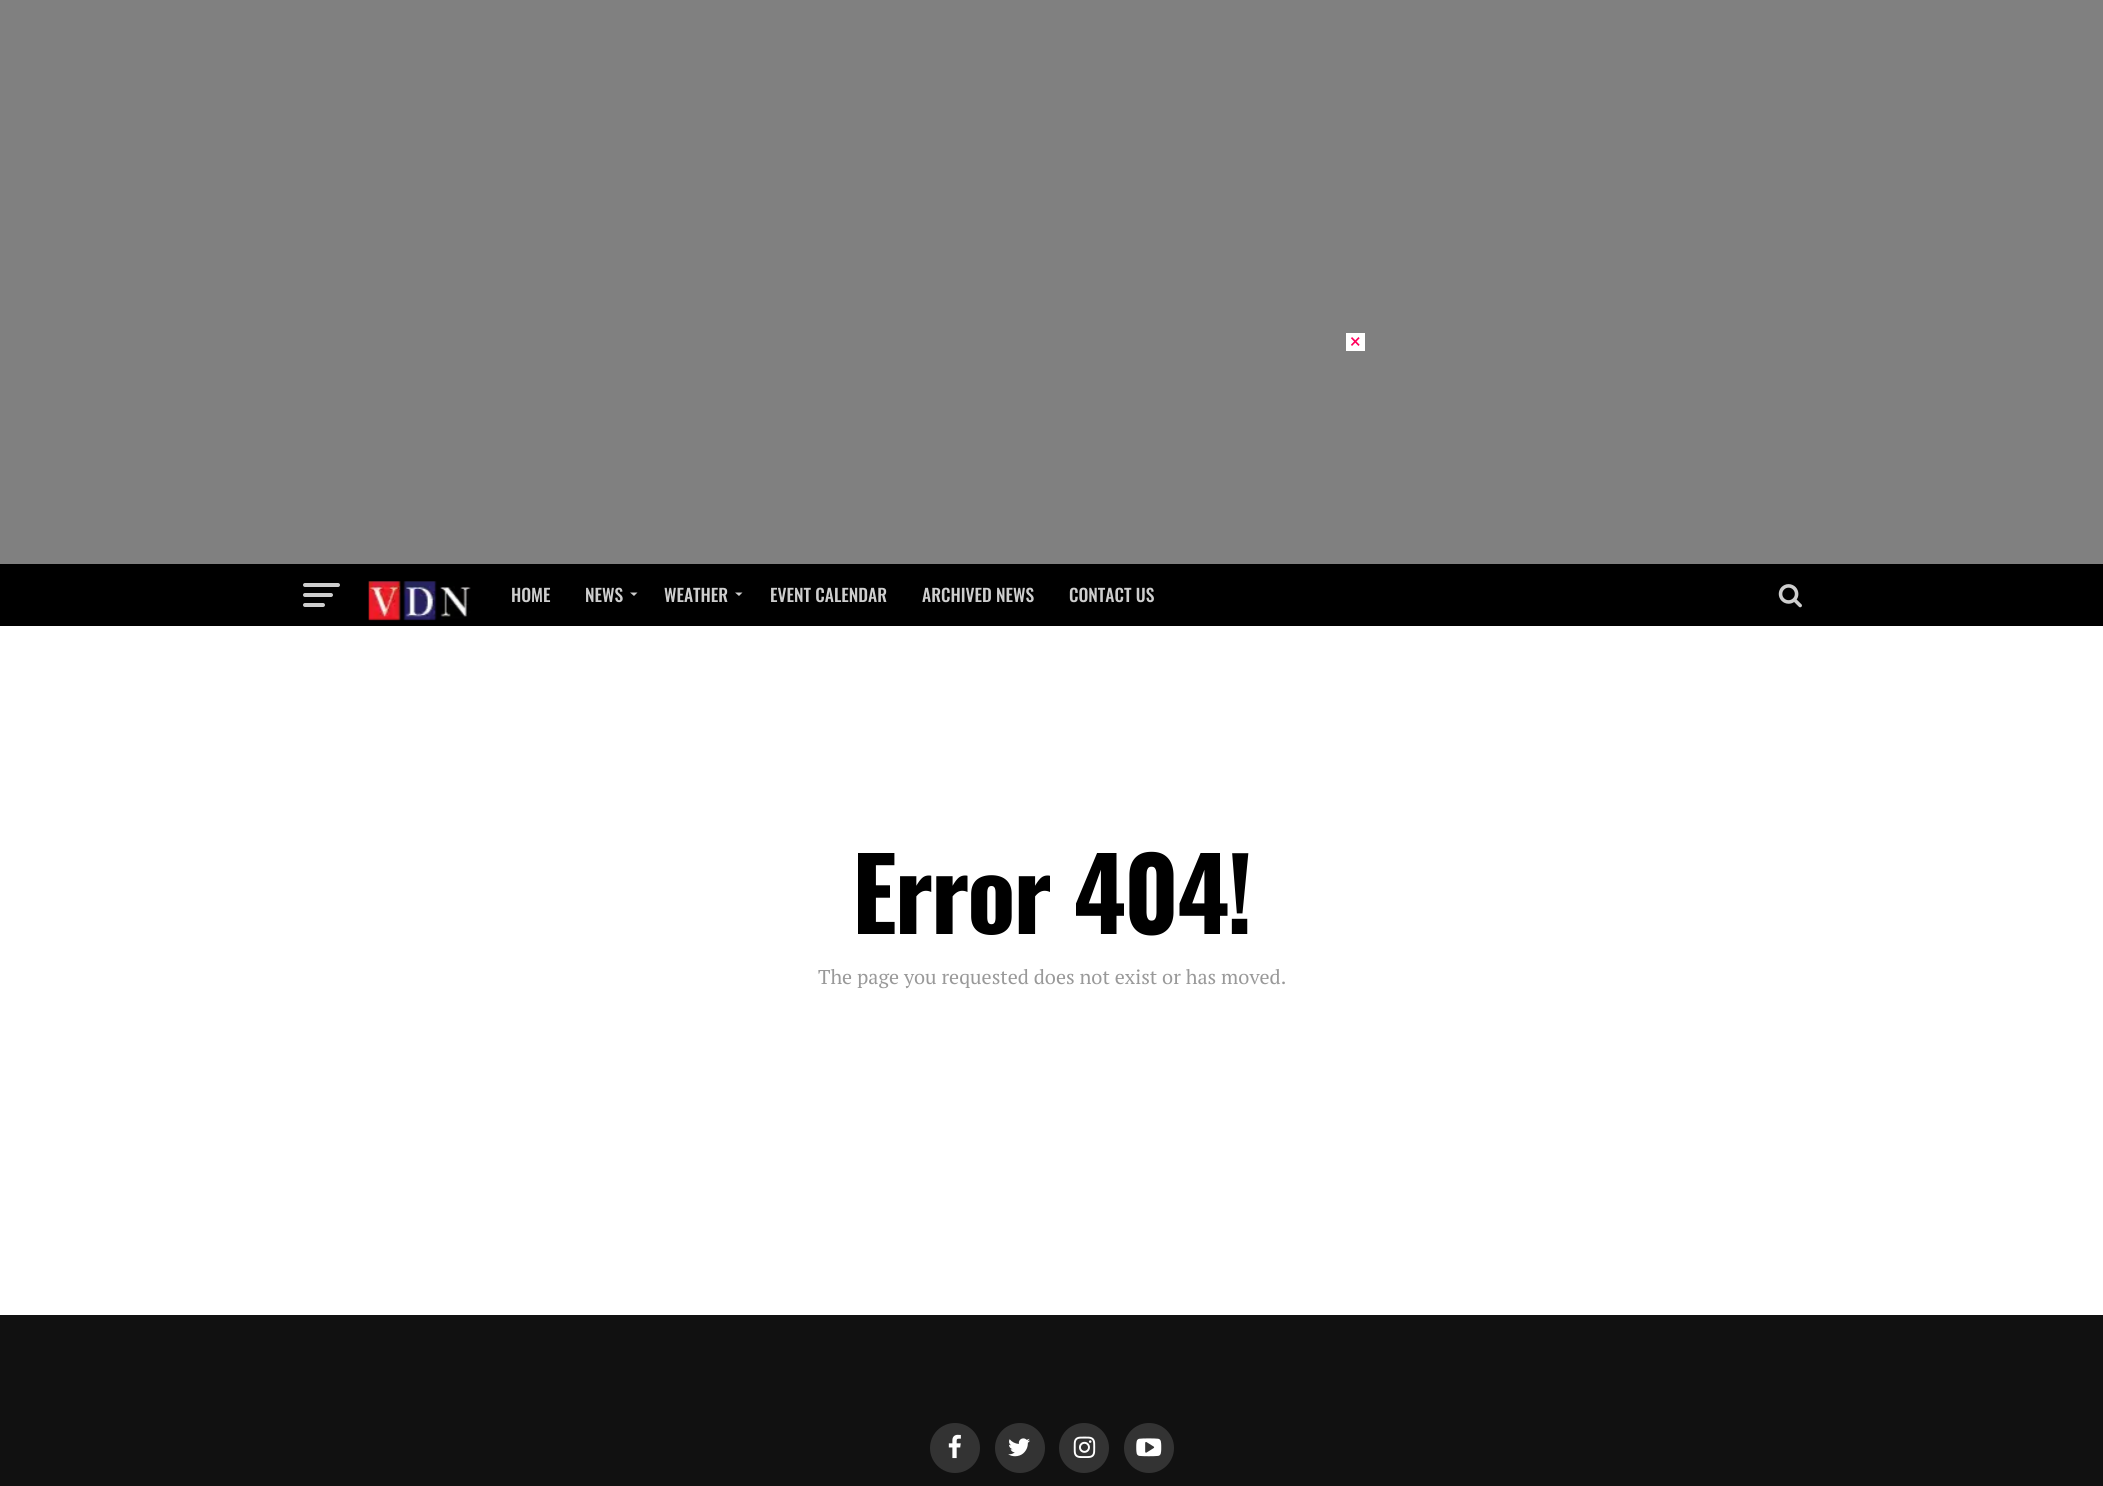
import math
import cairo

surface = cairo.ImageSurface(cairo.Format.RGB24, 2103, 1486)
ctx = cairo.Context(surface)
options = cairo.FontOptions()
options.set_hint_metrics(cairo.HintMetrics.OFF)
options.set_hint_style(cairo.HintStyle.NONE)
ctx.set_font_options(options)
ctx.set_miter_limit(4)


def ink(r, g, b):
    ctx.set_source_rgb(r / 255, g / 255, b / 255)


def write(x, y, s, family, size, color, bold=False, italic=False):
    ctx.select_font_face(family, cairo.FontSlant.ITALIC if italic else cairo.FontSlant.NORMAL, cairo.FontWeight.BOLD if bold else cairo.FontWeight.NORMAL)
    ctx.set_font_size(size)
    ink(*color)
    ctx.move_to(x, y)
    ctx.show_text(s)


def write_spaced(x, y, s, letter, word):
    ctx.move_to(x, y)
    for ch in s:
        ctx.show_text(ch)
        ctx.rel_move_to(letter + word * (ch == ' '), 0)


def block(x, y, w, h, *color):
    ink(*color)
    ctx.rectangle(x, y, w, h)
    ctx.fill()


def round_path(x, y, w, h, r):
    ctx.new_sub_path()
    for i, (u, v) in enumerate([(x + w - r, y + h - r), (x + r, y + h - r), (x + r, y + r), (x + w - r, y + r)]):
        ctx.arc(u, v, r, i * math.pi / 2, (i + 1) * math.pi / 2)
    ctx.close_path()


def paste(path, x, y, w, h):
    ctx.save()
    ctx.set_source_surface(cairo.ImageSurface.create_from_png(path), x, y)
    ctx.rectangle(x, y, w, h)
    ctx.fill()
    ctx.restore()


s1 = dict(family="Roboto", size=20, color=(255, 0, 91))
s2 = dict(family="Oswald Medium", size=17.5, color=(206, 206, 206))
s3 = dict(family="PT Serif", size=20, color=(153, 153, 153))

ink(128, 128, 128)
ctx.paint()
block(1346, 333, 19, 18, 255, 255, 255)
write(1350, 348, "×", **s1)
block(0, 564, 2103, 62, 0, 0, 0)
ink(206, 206, 206)
round_path(303, 583, 37, 4, 2)
ctx.fill()
round_path(303, 593, 30, 4, 2)
ctx.fill()
round_path(303, 603, 22, 4, 2)
ctx.fill()
paste("pic1.png", 368, 581, 103, 40)
write(511, 602, "HOME", **s2)
write(585, 602, "NEWS", **s2)
ctx.new_path()
ctx.move_to(630, 592.5)
ctx.line_to(637.5, 592.5)
ctx.line_to(634, 596)
ctx.close_path()
ctx.fill()
write(664, 602, "WEATHER", **s2)
ctx.new_path()
ctx.move_to(735, 592.5)
ctx.line_to(742.5, 592.5)
ctx.line_to(739, 596)
ctx.close_path()
ctx.fill()
write(770, 602, "EVENT CALENDAR", **s2)
write(922, 602, "ARCHIVED NEWS", **s2)
write(1069, 602, "CONTACT US", **s2)
paste("pic2.png", 1778, 584, 24, 24)
block(0, 626, 2103, 689, 255, 255, 255)
ctx.select_font_face("Oswald", cairo.FontSlant.NORMAL, cairo.FontWeight.BOLD)
ctx.set_font_size(100)
ink(0, 0, 0)
write_spaced(852, 934, "Error 404!", -2, 0)
write(818, 984, "The page you requested does not exist or has moved.", **s3)
block(0, 1315, 2103, 171, 17, 17, 17)
ink(51, 51, 51)
ctx.new_path()
ctx.arc(955, 1448, 25, 0, 2 * math.pi)
ctx.fill()
paste("pic3.png", 948, 1434, 13, 25)
ctx.arc(1020, 1448, 25, 0, 2 * math.pi)
ctx.fill()
paste("pic4.png", 1008, 1438, 22, 19)
ctx.arc(1084, 1448, 25, 0, 2 * math.pi)
ctx.fill()
paste("pic5.png", 1073, 1436, 23, 22)
ctx.arc(1149, 1448, 25, 0, 2 * math.pi)
ctx.fill()
paste("pic6.png", 1136, 1438, 26, 19)
surface.write_to_png("screenshot.png")
